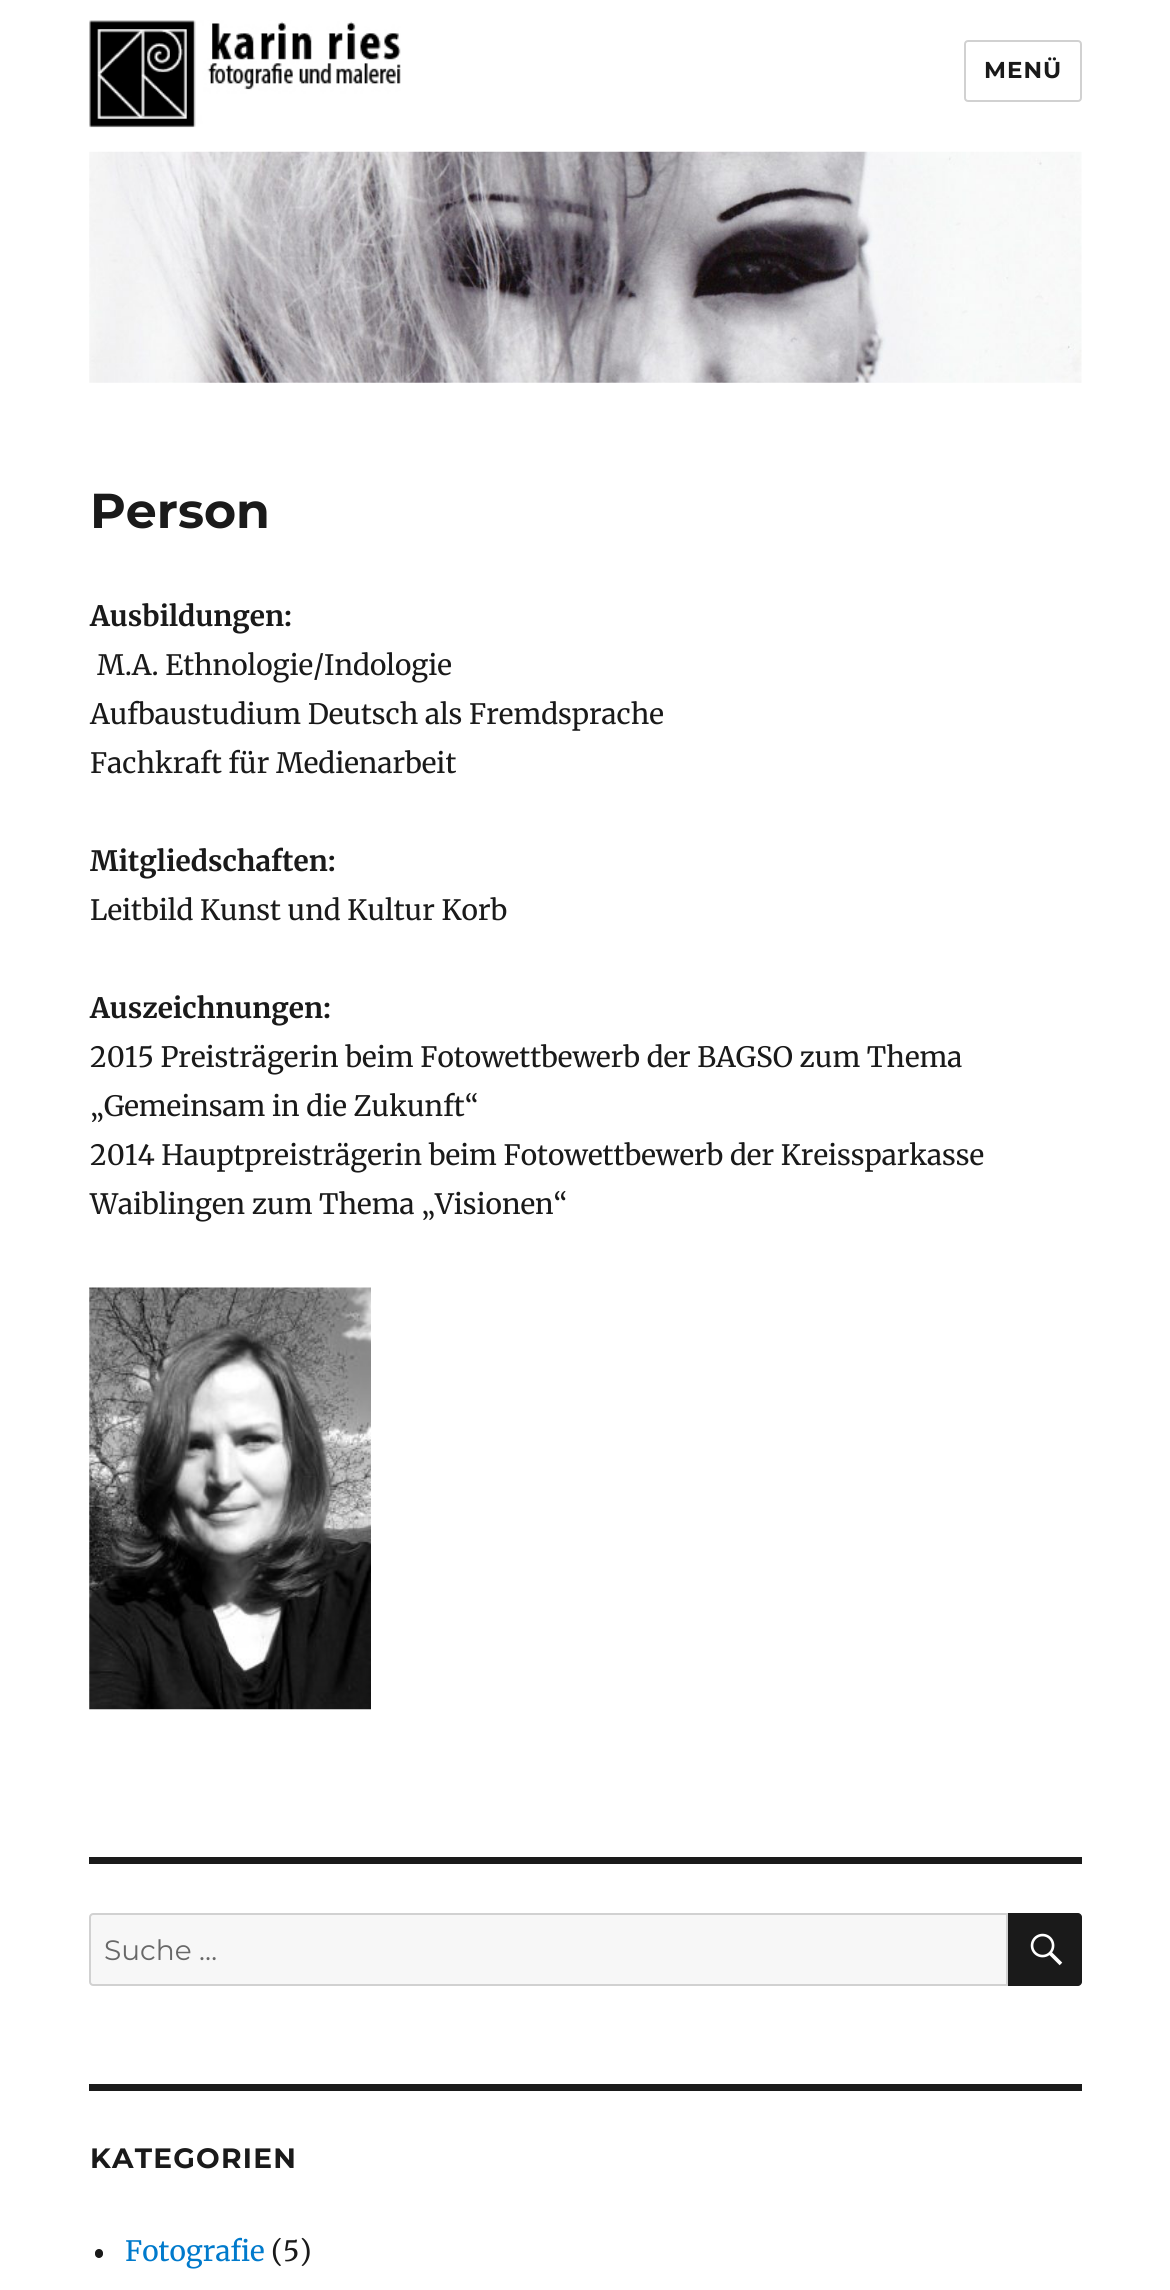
import math
import cairo

surface = cairo.ImageSurface(cairo.Format.RGB24, 1170, 2290)
ctx = cairo.Context(surface)
options = cairo.FontOptions()
options.set_hint_metrics(cairo.HintMetrics.OFF)
options.set_hint_style(cairo.HintStyle.NONE)
ctx.set_font_options(options)
ctx.set_miter_limit(4)


def ink(r, g, b):
    ctx.set_source_rgb(r / 255, g / 255, b / 255)


def write(x, y, s, family, size, color, bold=False, italic=False):
    ctx.select_font_face(family, cairo.FontSlant.ITALIC if italic else cairo.FontSlant.NORMAL, cairo.FontWeight.BOLD if bold else cairo.FontWeight.NORMAL)
    ctx.set_font_size(size)
    ink(*color)
    ctx.move_to(x, y)
    ctx.show_text(s)


def write_spaced(x, y, s, letter, word):
    ctx.move_to(x, y)
    for ch in s:
        ctx.show_text(ch)
        ctx.rel_move_to(letter + word * (ch == ' '), 0)


def block(x, y, w, h, *color):
    ink(*color)
    ctx.rectangle(x, y, w, h)
    ctx.fill()


def round_path(x, y, w, h, r):
    ctx.new_sub_path()
    for i, (u, v) in enumerate([(x + w - r, y + h - r), (x + r, y + h - r), (x + r, y + r), (x + w - r, y + r)]):
        ctx.arc(u, v, r, i * math.pi / 2, (i + 1) * math.pi / 2)
    ctx.close_path()


def paste(path, x, y, w, h):
    ctx.save()
    ctx.set_source_surface(cairo.ImageSurface.create_from_png(path), x, y)
    ctx.rectangle(x, y, w, h)
    ctx.fill()
    ctx.restore()


s1 = dict(family="Montserrat", size=49, color=(26, 26, 26), bold=True)
s2 = dict(family="Merriweather", size=28, color=(26, 26, 26), bold=True)
s3 = dict(family="Merriweather", size=28, color=(26, 26, 26))
s4 = dict(family="Montserrat", size=28, color=(104, 104, 104))
s5 = dict(family="Merriweather", size=28, color=(0, 122, 204))

ink(255, 255, 255)
ctx.paint()
paste("pic1.png", 89, 20, 312, 108)
round_path(965, 41, 116, 60, 3)
ink(209, 209, 209)
ctx.stroke()
ctx.select_font_face("Montserrat", cairo.FontSlant.NORMAL, cairo.FontWeight.BOLD)
ctx.set_font_size(23)
ink(26, 26, 26)
write_spaced(984, 78, "MENÜ", 1, 0)
paste("pic2.png", 89, 151, 993, 232)
write(90, 528, "Person", **s1)
write(90, 626, "Ausbildungen:", **s2)
write(97, 675, "M.A. Ethnologie/Indologie", **s3)
write(90, 724, "Aufbaustudium Deutsch als Fremdsprache", **s3)
write(90, 773, "Fachkraft für Medienarbeit", **s3)
write(90, 871, "Mitgliedschaften:", **s2)
write(90, 920, "Leitbild Kunst und Kultur Korb", **s3)
write(90, 1018, "Auszeichnungen:", **s2)
write(90, 1067, "2015 Preisträgerin beim Fotowettbewerb der BAGSO zum Thema", **s3)
write(90, 1116, "„Gemeinsam in die Zukunft“", **s3)
write(90, 1165, "2014 Hauptpreisträgerin beim Fotowettbewerb der Kreissparkasse", **s3)
write(90, 1214, "Waiblingen zum Thema „Visionen“", **s3)
paste("pic3.png", 89, 1287, 282, 423)
block(89, 1857, 993, 7, 26, 26, 26)
ink(247, 247, 247)
ctx.new_path()
ctx.move_to(93, 1914)
ctx.line_to(1007, 1914)
ctx.line_to(1007, 1985)
ctx.line_to(93, 1985)
ctx.curve_to(91.5, 1985, 90, 1983.5, 90, 1982)
ctx.line_to(90, 1917)
ctx.curve_to(90, 1915.5, 91.5, 1914, 93, 1914)
ctx.close_path()
ctx.fill_preserve()
ink(209, 209, 209)
ctx.stroke()
write(104, 1960, "Suche …", **s4)
ink(26, 26, 26)
ctx.new_path()
ctx.move_to(1008, 1913)
ctx.line_to(1078, 1913)
ctx.curve_to(1080, 1913, 1082, 1915, 1082, 1917)
ctx.line_to(1082, 1982)
ctx.curve_to(1082, 1984, 1080, 1986, 1078, 1986)
ctx.line_to(1008, 1986)
ctx.close_path()
ctx.fill()
paste("pic4.png", 1030, 1933, 33, 33)
block(89, 2084, 993, 7, 26, 26, 26)
ctx.select_font_face("Montserrat", cairo.FontSlant.NORMAL, cairo.FontWeight.BOLD)
write_spaced(90, 2168, "KATEGORIEN", 1.25, 0)
round_path(95, 2249, 8, 9, 4)
ctx.fill()
write(125, 2261, "Fotografie", **s5)
write(271, 2261, "(5)", **s3)
surface.write_to_png("screenshot.png")
